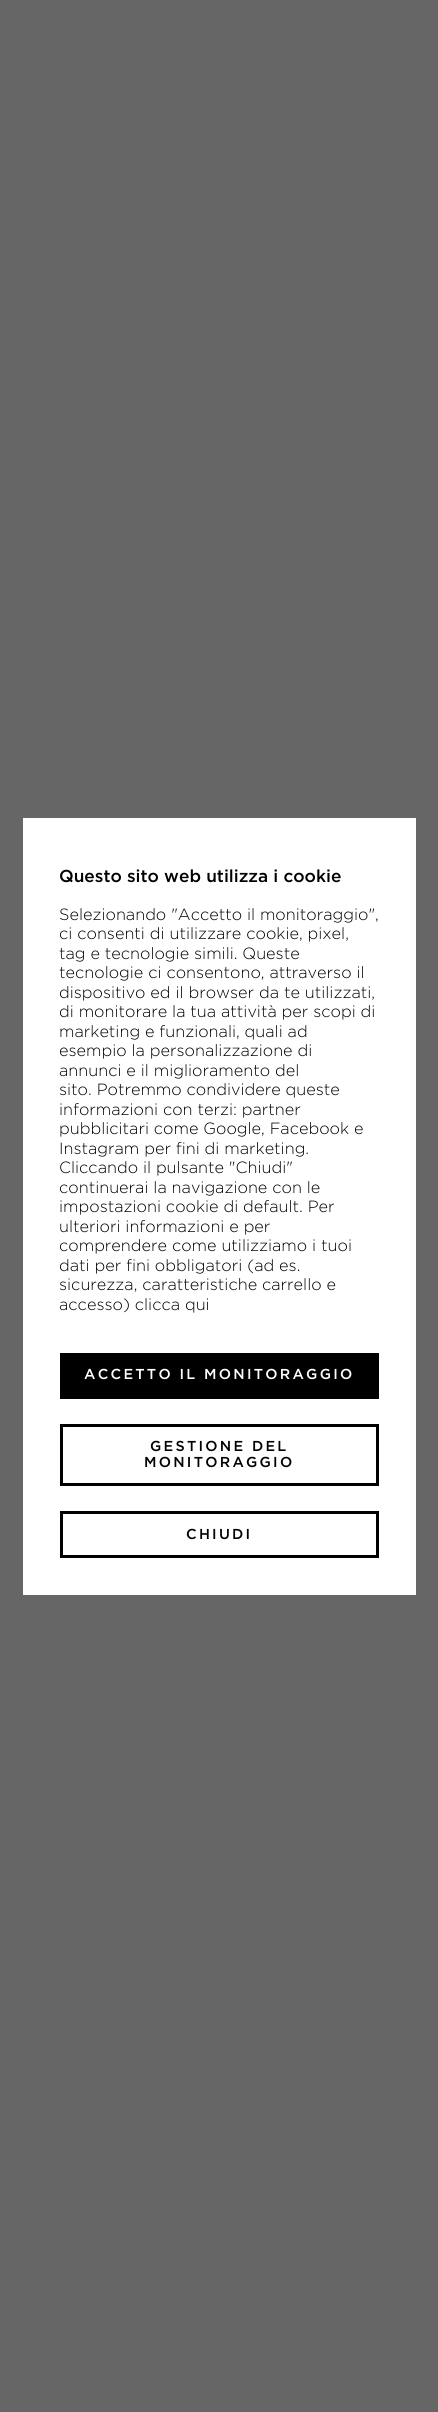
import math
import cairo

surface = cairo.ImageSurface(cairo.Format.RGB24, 438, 2412)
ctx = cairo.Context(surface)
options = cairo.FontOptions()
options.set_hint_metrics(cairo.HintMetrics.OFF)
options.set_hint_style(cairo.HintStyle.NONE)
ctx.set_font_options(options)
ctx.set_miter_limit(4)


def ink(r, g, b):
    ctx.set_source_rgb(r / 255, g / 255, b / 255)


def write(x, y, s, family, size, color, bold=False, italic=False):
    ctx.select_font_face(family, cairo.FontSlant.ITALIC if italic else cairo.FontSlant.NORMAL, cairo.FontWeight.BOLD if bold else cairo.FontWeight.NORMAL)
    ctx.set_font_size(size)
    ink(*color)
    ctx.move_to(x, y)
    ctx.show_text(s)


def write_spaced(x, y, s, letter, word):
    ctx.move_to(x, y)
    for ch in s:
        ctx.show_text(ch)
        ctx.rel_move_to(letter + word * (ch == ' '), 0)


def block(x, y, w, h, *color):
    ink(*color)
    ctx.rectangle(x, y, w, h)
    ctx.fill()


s1 = dict(family="Gotham Medium", size=17.25, color=(0, 0, 0))
s2 = dict(family="Gotham Light", size=16.25, color=(0, 0, 0))

ink(102, 102, 102)
ctx.paint()
block(23, 818, 393, 777, 255, 255, 255)
write(59, 882, "Questo sito web utilizza i cookie", **s1)
write(59, 920, "Selezionando \"Accetto il monitoraggio\",", **s2)
write(59, 939, "ci consenti di utilizzare cookie, pixel,", **s2)
write(59, 959, "tag e tecnologie simili. Queste", **s2)
write(59, 978, "tecnologie ci consentono, attraverso il", **s2)
write(59, 998, "dispositivo ed il browser da te utilizzati,", **s2)
write(59, 1017, "di monitorare la tua attività per scopi di", **s2)
write(59, 1037, "marketing e funzionali, quali ad", **s2)
write(59, 1056, "esempio la personalizzazione di", **s2)
write(59, 1076, "annunci e il miglioramento del", **s2)
write(59, 1095, "sito. Potremmo condividere queste", **s2)
write(59, 1115, "informazioni con terzi: partner", **s2)
write(59, 1134, "pubblicitari come Google, Facebook e", **s2)
write(59, 1154, "Instagram per fini di marketing.", **s2)
write(59, 1173, "Cliccando il pulsante \"Chiudi\"", **s2)
write(59, 1193, "continuerai la navigazione con le", **s2)
write(59, 1212, "impostazioni cookie di default. Per", **s2)
write(59, 1232, "ulteriori informazioni e per", **s2)
write(59, 1251, "comprendere come utilizziamo i tuoi", **s2)
write(59, 1271, "dati per fini obbligatori (ad es.", **s2)
write(59, 1290, "sicurezza, caratteristiche carrello e", **s2)
write(59, 1310, "accesso) clicca qui", **s2)
block(60, 1353, 319, 46, 0, 0, 0)
ctx.select_font_face("Gotham Medium")
ctx.set_font_size(14.4)
ink(255, 255, 255)
write_spaced(84, 1379, "ACCETTO IL MONITORAGGIO", 2.25, 0)
ctx.rectangle(61.5, 1425.5, 316, 59)
ink(0, 0, 0)
ctx.set_line_width(3)
ctx.stroke()
write_spaced(150, 1451, "GESTIONE DEL", 2.25, 0)
write_spaced(144, 1467, "MONITORAGGIO", 2.25, 0)
ctx.rectangle(61.5, 1512.5, 316, 44)
ctx.stroke()
write_spaced(186, 1539, "CHIUDI", 2.25, 0)
surface.write_to_png("screenshot.png")
